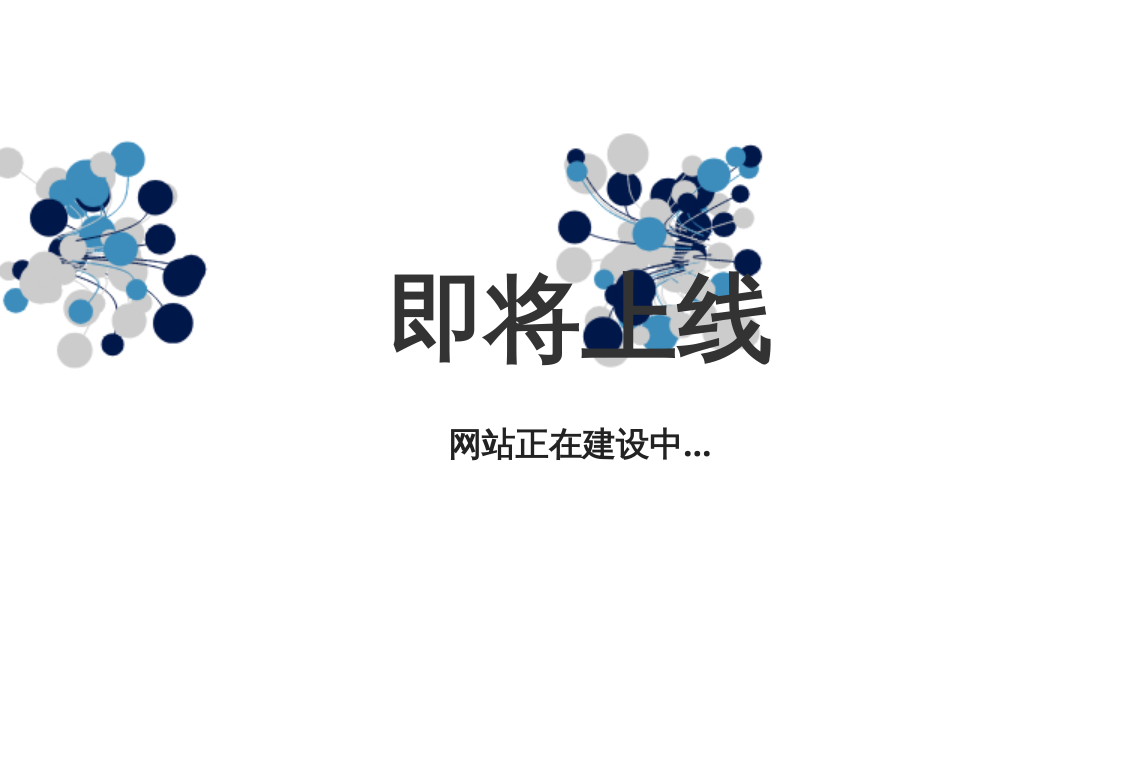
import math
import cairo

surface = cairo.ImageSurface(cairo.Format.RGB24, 1135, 757)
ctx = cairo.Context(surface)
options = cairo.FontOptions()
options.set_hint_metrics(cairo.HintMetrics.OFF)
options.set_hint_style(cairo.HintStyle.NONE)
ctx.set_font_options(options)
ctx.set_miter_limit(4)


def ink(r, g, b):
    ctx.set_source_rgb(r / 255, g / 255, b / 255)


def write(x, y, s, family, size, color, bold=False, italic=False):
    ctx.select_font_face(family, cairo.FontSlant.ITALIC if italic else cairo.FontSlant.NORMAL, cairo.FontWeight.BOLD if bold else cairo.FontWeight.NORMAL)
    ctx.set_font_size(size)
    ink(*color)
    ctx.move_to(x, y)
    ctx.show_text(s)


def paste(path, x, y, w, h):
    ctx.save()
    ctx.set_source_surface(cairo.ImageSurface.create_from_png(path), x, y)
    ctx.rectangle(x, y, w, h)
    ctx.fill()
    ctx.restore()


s1 = dict(family="WenQuanYi Zen Hei", size=96, color=(51, 51, 51), bold=True)
s2 = dict(family="WenQuanYi Zen Hei", size=33.5, color=(34, 34, 34), bold=True)
s3 = dict(family="Open Sans", size=33.5, color=(34, 34, 34), bold=True)

ink(255, 255, 255)
ctx.paint()
paste("pic1.png", 0, 133, 763, 236)
write(388, 353, "即将上线", **s1)
write(448, 456, "网站正在建设中", **s2)
write(683, 456, "...", **s3)
surface.write_to_png("screenshot.png")
